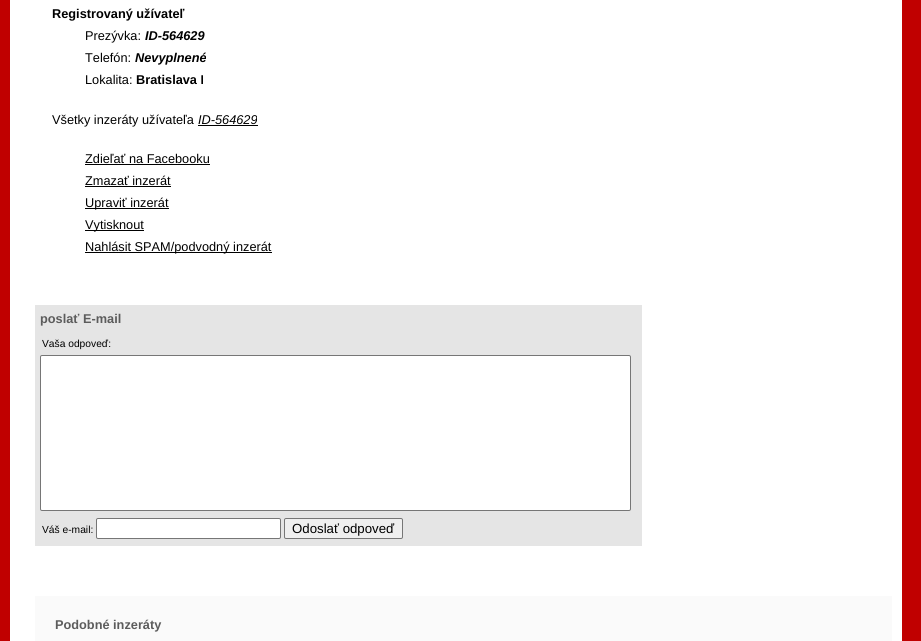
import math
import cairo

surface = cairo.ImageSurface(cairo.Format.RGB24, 921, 641)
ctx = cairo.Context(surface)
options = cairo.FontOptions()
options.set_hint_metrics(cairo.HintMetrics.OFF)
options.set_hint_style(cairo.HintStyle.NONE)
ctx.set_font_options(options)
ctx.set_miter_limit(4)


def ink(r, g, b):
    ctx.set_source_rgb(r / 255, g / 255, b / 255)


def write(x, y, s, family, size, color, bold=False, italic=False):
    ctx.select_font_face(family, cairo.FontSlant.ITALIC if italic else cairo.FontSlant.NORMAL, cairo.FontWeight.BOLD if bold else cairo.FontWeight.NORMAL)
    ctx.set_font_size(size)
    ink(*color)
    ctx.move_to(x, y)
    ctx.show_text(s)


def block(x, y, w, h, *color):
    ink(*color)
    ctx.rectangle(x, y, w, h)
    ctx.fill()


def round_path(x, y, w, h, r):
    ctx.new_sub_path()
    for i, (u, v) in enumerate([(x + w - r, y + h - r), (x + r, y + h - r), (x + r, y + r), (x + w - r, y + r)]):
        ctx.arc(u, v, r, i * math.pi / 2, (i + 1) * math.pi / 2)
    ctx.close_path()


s1 = dict(family="Liberation Sans", size=12.75, color=(0, 0, 0), bold=True)
s2 = dict(family="Liberation Sans", size=12.75, color=(0, 0, 0))
s3 = dict(family="Liberation Sans", size=12.75, color=(0, 0, 0), bold=True, italic=True)
s4 = dict(family="Liberation Sans", size=12.75, color=(0, 0, 0), italic=True)
s5 = dict(family="Liberation Sans", size=12.75, color=(92, 92, 92), bold=True)
s6 = dict(family="Liberation Sans", size=10.25, color=(0, 0, 0))
s7 = dict(family="Liberation Sans", size=13.25, color=(0, 0, 0))

ink(192, 0, 0)
ctx.paint()
block(10, 0, 892, 641, 255, 255, 255)
write(52, 18, "Registrovaný užívateľ", **s1)
write(85, 40, "Prezývka:", **s2)
write(145, 40, "ID-564629", **s3)
write(85, 62, "Telefón:", **s2)
write(135, 62, "Nevyplnené", **s3)
write(85, 84, "Lokalita:", **s2)
write(136, 84, "Bratislava I", **s1)
write(52, 124, "Všetky inzeráty užívateľa", **s2)
write(198, 124, "ID-564629", **s4)
block(198, 125, 60, 1, 0, 0, 0)
write(85, 163, "Zdieľať na Facebooku", **s2)
block(85, 164, 125, 1, 0, 0, 0)
write(85, 185, "Zmazať inzerát", **s2)
block(85, 186, 86, 1, 0, 0, 0)
block(85, 208, 84, 1, 0, 0, 0)
write(85, 207, "Upraviť inzerát", **s2)
block(85, 230, 59, 1, 0, 0, 0)
write(85, 229, "Vytisknout", **s2)
block(85, 252, 187, 1, 0, 0, 0)
write(85, 251, "Nahlásit SPAM/podvodný inzerát", **s2)
block(35, 305, 607, 241, 229, 229, 229)
write(40, 323, "poslať E-mail", **s5)
write(42, 347, "Vaša odpoveď:", **s6)
ink(255, 255, 255)
round_path(40.5, 355.5, 590, 155, 1.5)
ctx.fill_preserve()
ink(118, 118, 118)
ctx.set_line_width(1)
ctx.stroke()
write(42, 533, "Váš e-mail:", **s6)
ink(255, 255, 255)
round_path(96.5, 518.5, 184, 20, 1.5)
ctx.fill_preserve()
ink(118, 118, 118)
ctx.stroke()
ink(239, 239, 239)
round_path(284.5, 518.5, 118, 20, 1.5)
ctx.fill_preserve()
ink(118, 118, 118)
ctx.stroke()
write(292, 533, "Odoslať odpoveď", **s7)
block(35, 596, 857, 45, 250, 250, 250)
write(55, 629, "Podobné inzeráty", **s5)
surface.write_to_png("screenshot.png")
